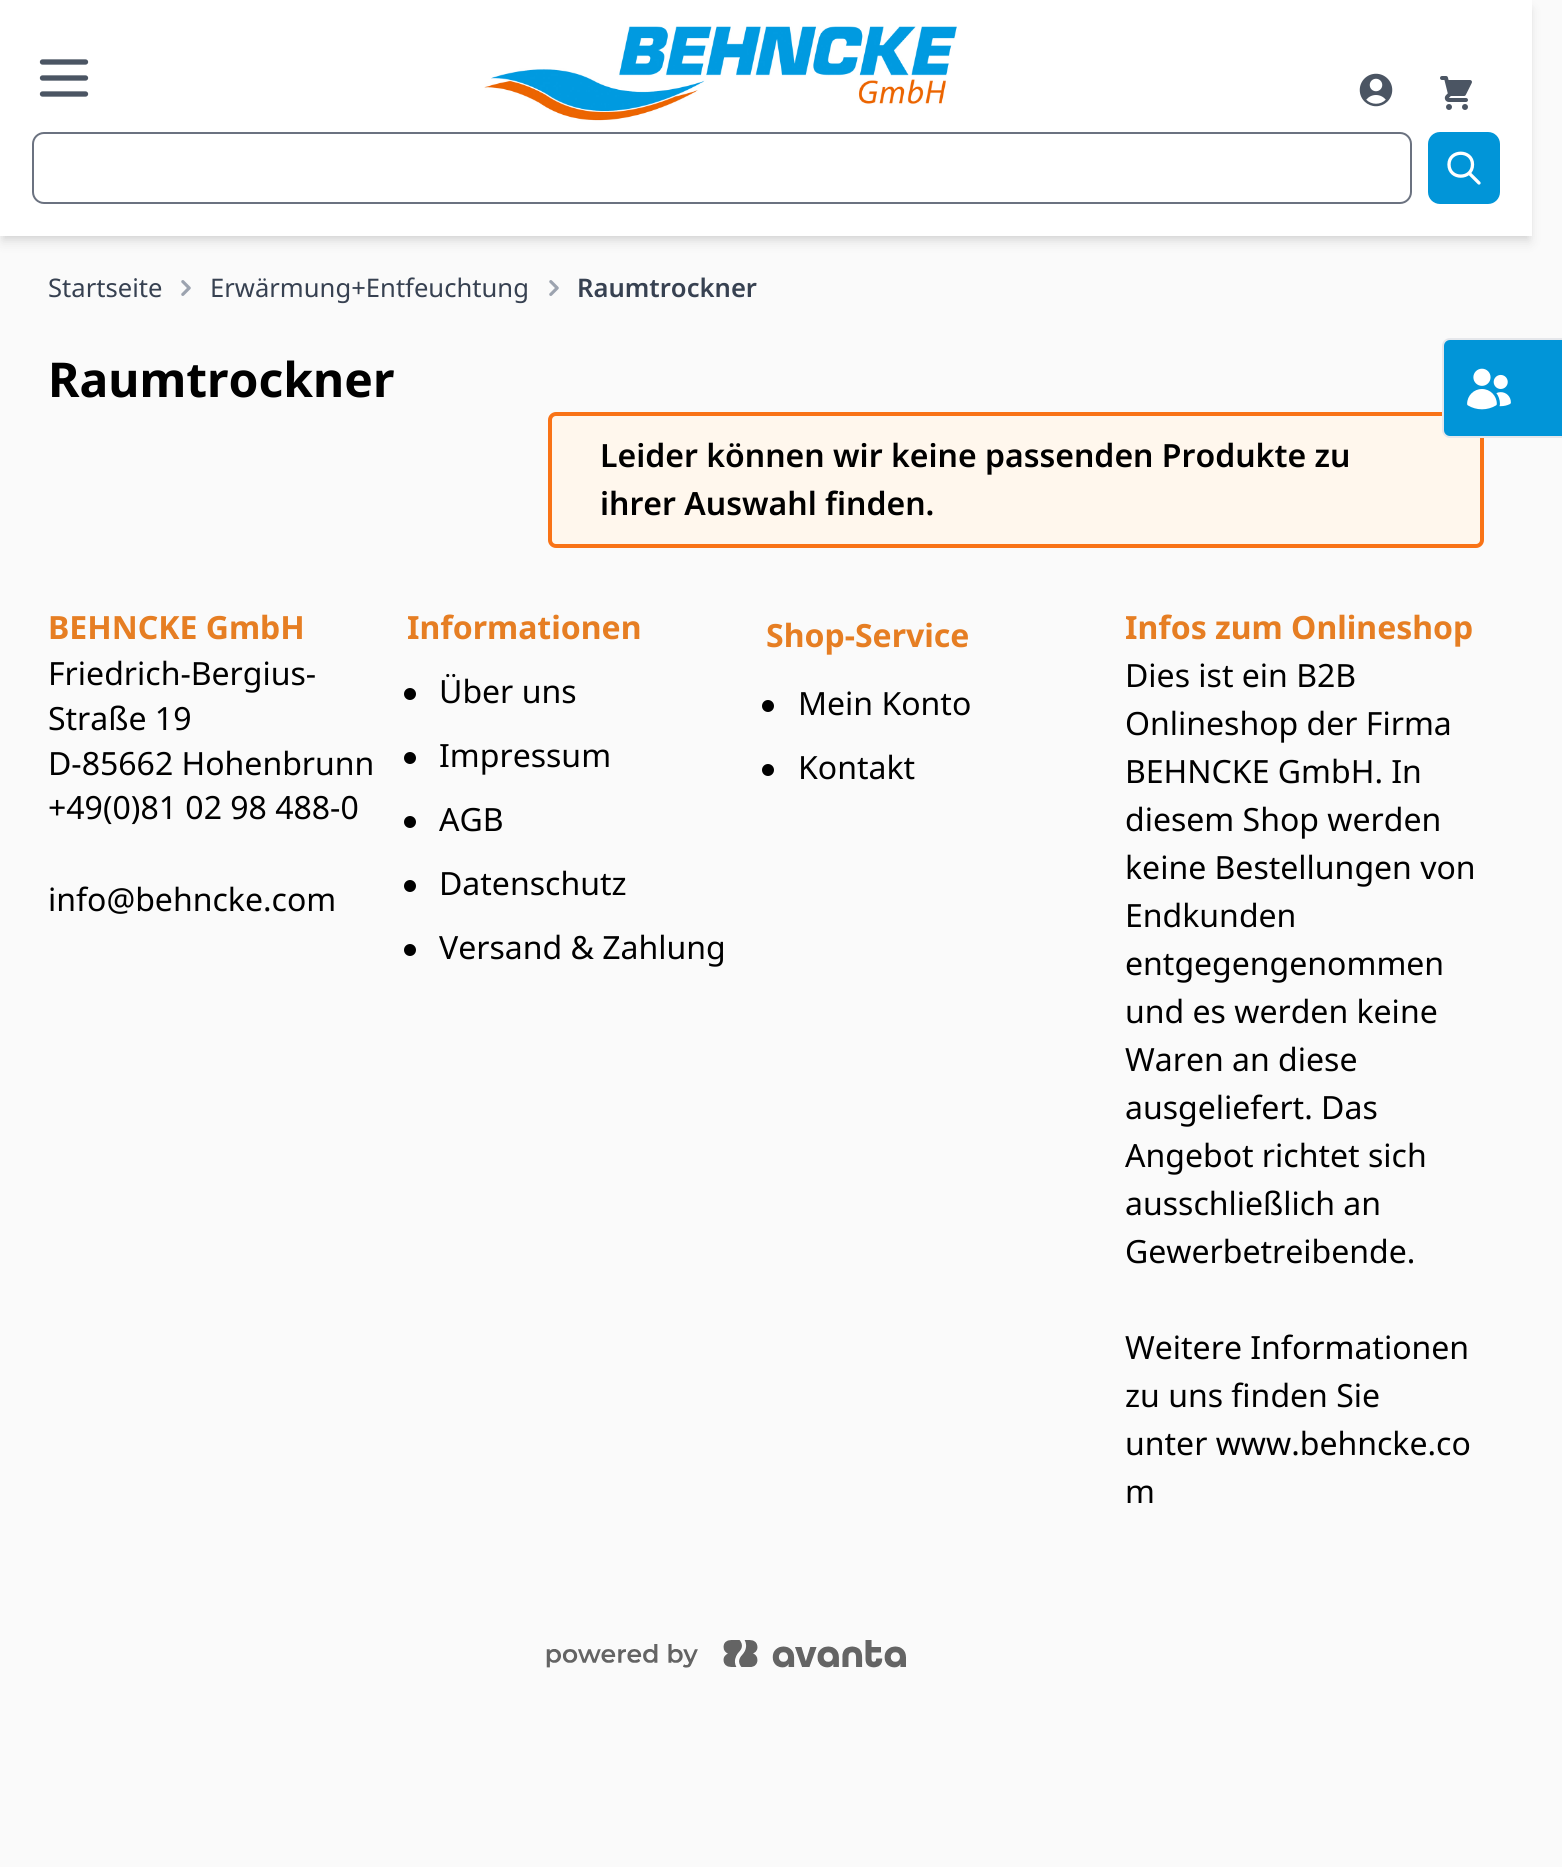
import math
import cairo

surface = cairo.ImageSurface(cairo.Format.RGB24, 1562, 1867)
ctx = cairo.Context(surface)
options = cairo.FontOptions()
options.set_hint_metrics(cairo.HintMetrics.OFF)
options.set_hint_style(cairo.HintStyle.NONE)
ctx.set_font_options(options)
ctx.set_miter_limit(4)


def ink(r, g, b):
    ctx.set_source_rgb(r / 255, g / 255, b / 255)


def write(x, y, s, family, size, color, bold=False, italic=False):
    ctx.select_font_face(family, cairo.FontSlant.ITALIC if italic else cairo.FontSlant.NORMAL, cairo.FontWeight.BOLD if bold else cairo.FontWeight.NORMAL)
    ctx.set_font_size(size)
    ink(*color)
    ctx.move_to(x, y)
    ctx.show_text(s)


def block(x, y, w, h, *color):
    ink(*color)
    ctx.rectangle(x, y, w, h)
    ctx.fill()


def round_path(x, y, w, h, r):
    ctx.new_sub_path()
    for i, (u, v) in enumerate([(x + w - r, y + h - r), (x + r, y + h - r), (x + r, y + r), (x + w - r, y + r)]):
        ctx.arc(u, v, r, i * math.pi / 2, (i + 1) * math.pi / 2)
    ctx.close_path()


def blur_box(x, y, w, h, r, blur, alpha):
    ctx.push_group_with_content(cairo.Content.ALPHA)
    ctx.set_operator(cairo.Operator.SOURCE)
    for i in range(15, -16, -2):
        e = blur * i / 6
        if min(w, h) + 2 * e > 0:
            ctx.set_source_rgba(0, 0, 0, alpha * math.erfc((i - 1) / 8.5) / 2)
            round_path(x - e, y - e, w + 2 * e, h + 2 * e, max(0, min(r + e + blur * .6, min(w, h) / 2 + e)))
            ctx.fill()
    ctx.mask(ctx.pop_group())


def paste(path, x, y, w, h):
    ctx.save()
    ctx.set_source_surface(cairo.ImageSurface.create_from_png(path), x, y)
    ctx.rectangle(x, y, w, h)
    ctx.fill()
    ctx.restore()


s1 = dict(family="Noto Sans", size=25.6, color=(55, 65, 81))
s2 = dict(family="Noto Sans SemiBold", size=25.6, color=(55, 65, 81))
s3 = dict(family="Noto Sans", size=48, color=(0, 0, 0), bold=True)
s4 = dict(family="Noto Sans SemiBold", size=32, color=(0, 0, 0))
s5 = dict(family="Noto Sans", size=32, color=(230, 126, 35), bold=True)
s6 = dict(family="Noto Sans", size=32, color=(0, 0, 0))

ink(250, 250, 250)
ctx.paint()
ink(0, 0, 0)
blur_box(4, 8, 1524, 228, 0, 4, 0.1)
blur_box(2, 10, 1528, 232, 0, 6, 0.1)
block(0, 0, 1532, 236, 255, 255, 255)
ctx.new_path()
ctx.move_to(42.5, 62)
ctx.line_to(85.5, 62)
ctx.move_to(42.5, 78)
ctx.line_to(85.5, 78)
ctx.move_to(42.5, 94)
ctx.line_to(85.5, 94)
ink(75, 85, 99)
ctx.set_line_width(5.3)
ctx.set_line_cap(cairo.LineCap.ROUND)
ctx.set_line_join(cairo.LineJoin.ROUND)
ctx.stroke()
paste("pic1.png", 484, 26, 473, 95)
paste("pic2.png", 1359, 73, 34, 34)
paste("pic3.png", 1440, 76, 32, 34)
round_path(33, 133, 1378, 70, 11)
ink(107, 114, 128)
ctx.set_line_width(2)
ctx.set_line_cap(cairo.LineCap.BUTT)
ctx.set_line_join(cairo.LineJoin.MITER)
ctx.stroke()
ink(1, 149, 216)
round_path(1428, 132, 72, 72, 12)
ctx.fill()
ctx.new_path()
ctx.move_to(1479, 183)
ctx.line_to(1469, 173)
ctx.move_to(1472.5, 164.5)
ctx.curve_to(1472.5, 180, 1449, 180, 1449, 164.5)
ctx.curve_to(1449, 149.5, 1472.5, 149.5, 1472.5, 164.5)
ctx.close_path()
ink(255, 255, 255)
ctx.set_line_width(3.3)
ctx.set_line_cap(cairo.LineCap.ROUND)
ctx.set_line_join(cairo.LineJoin.ROUND)
ctx.stroke()
write(48, 297, "Startseite", **s1)
paste("pic4.png", 181, 280, 10, 16)
write(210, 297, "Erwärmung+Entfeuchtung", **s1)
paste("pic4.png", 549, 280, 10, 16)
write(577, 297, "Raumtrockner", **s2)
write(48, 397, "Raumtrockner", **s3)
ink(255, 247, 237)
round_path(550, 414, 932, 132, 6)
ctx.fill_preserve()
ink(249, 115, 22)
ctx.set_line_width(4)
ctx.set_line_cap(cairo.LineCap.BUTT)
ctx.set_line_join(cairo.LineJoin.MITER)
ctx.stroke()
write(600, 467, "Leider können wir keine passenden Produkte zu", **s4)
write(600, 515, "ihrer Auswahl finden.", **s4)
ink(1, 149, 216)
round_path(1443, 339, 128, 98, 7)
ctx.fill_preserve()
ink(229, 231, 235)
ctx.set_line_width(2)
ctx.stroke()
paste("pic5.png", 1467, 368, 44, 42)
write(48, 639, "BEHNCKE GmbH", **s5)
write(48, 685, "Friedrich-Bergius-", **s6)
write(48, 730, "Straße 19", **s6)
write(48, 775, "D-85662 Hohenbrunn", **s6)
write(48, 819, "+49(0)81 02 98 488-0", **s6)
write(48, 911, "info@behncke.com", **s6)
write(407, 639, "Informationen", **s5)
ink(0, 0, 0)
ctx.new_path()
ctx.arc(410, 694, 6, 0, 2 * math.pi)
ctx.fill()
write(439, 703, "Über uns", **s6)
ctx.new_path()
ctx.arc(410, 758, 6, 0, 2 * math.pi)
ctx.fill()
write(439, 767, "Impressum", **s6)
ctx.new_path()
ctx.arc(410, 822, 6, 0, 2 * math.pi)
ctx.fill()
write(439, 831, "AGB", **s6)
ctx.new_path()
ctx.arc(410, 886, 6, 0, 2 * math.pi)
ctx.fill()
write(439, 895, "Datenschutz", **s6)
ctx.new_path()
ctx.arc(410, 950, 6, 0, 2 * math.pi)
ctx.fill()
write(439, 959, "Versand & Zahlung", **s6)
write(766, 647, "Shop-Service", **s5)
ink(0, 0, 0)
ctx.new_path()
ctx.arc(768, 706, 6, 0, 2 * math.pi)
ctx.fill()
write(798, 715, "Mein Konto", **s6)
ctx.new_path()
ctx.arc(768, 770, 6, 0, 2 * math.pi)
ctx.fill()
write(798, 779, "Kontakt", **s6)
write(1125, 639, "Infos zum Onlineshop", **s5)
write(1125, 687, "Dies ist ein B2B", **s6)
write(1125, 735, "Onlineshop der Firma", **s6)
write(1125, 783, "BEHNCKE GmbH. In", **s6)
write(1125, 831, "diesem Shop werden", **s6)
write(1125, 879, "keine Bestellungen von", **s6)
write(1125, 927, "Endkunden", **s6)
write(1125, 975, "entgegengenommen", **s6)
write(1125, 1023, "und es werden keine", **s6)
write(1125, 1071, "Waren an diese", **s6)
write(1125, 1119, "ausgeliefert. Das", **s6)
write(1125, 1167, "Angebot richtet sich", **s6)
write(1125, 1215, "ausschließlich an", **s6)
write(1125, 1263, "Gewerbetreibende.", **s6)
write(1125, 1359, "Weitere Informationen", **s6)
write(1125, 1407, "zu uns finden Sie", **s6)
write(1125, 1455, "unter www.behncke.co", **s6)
write(1125, 1503, "m", **s6)
paste("pic6.png", 546, 1640, 360, 28)
surface.write_to_png("screenshot.png")
